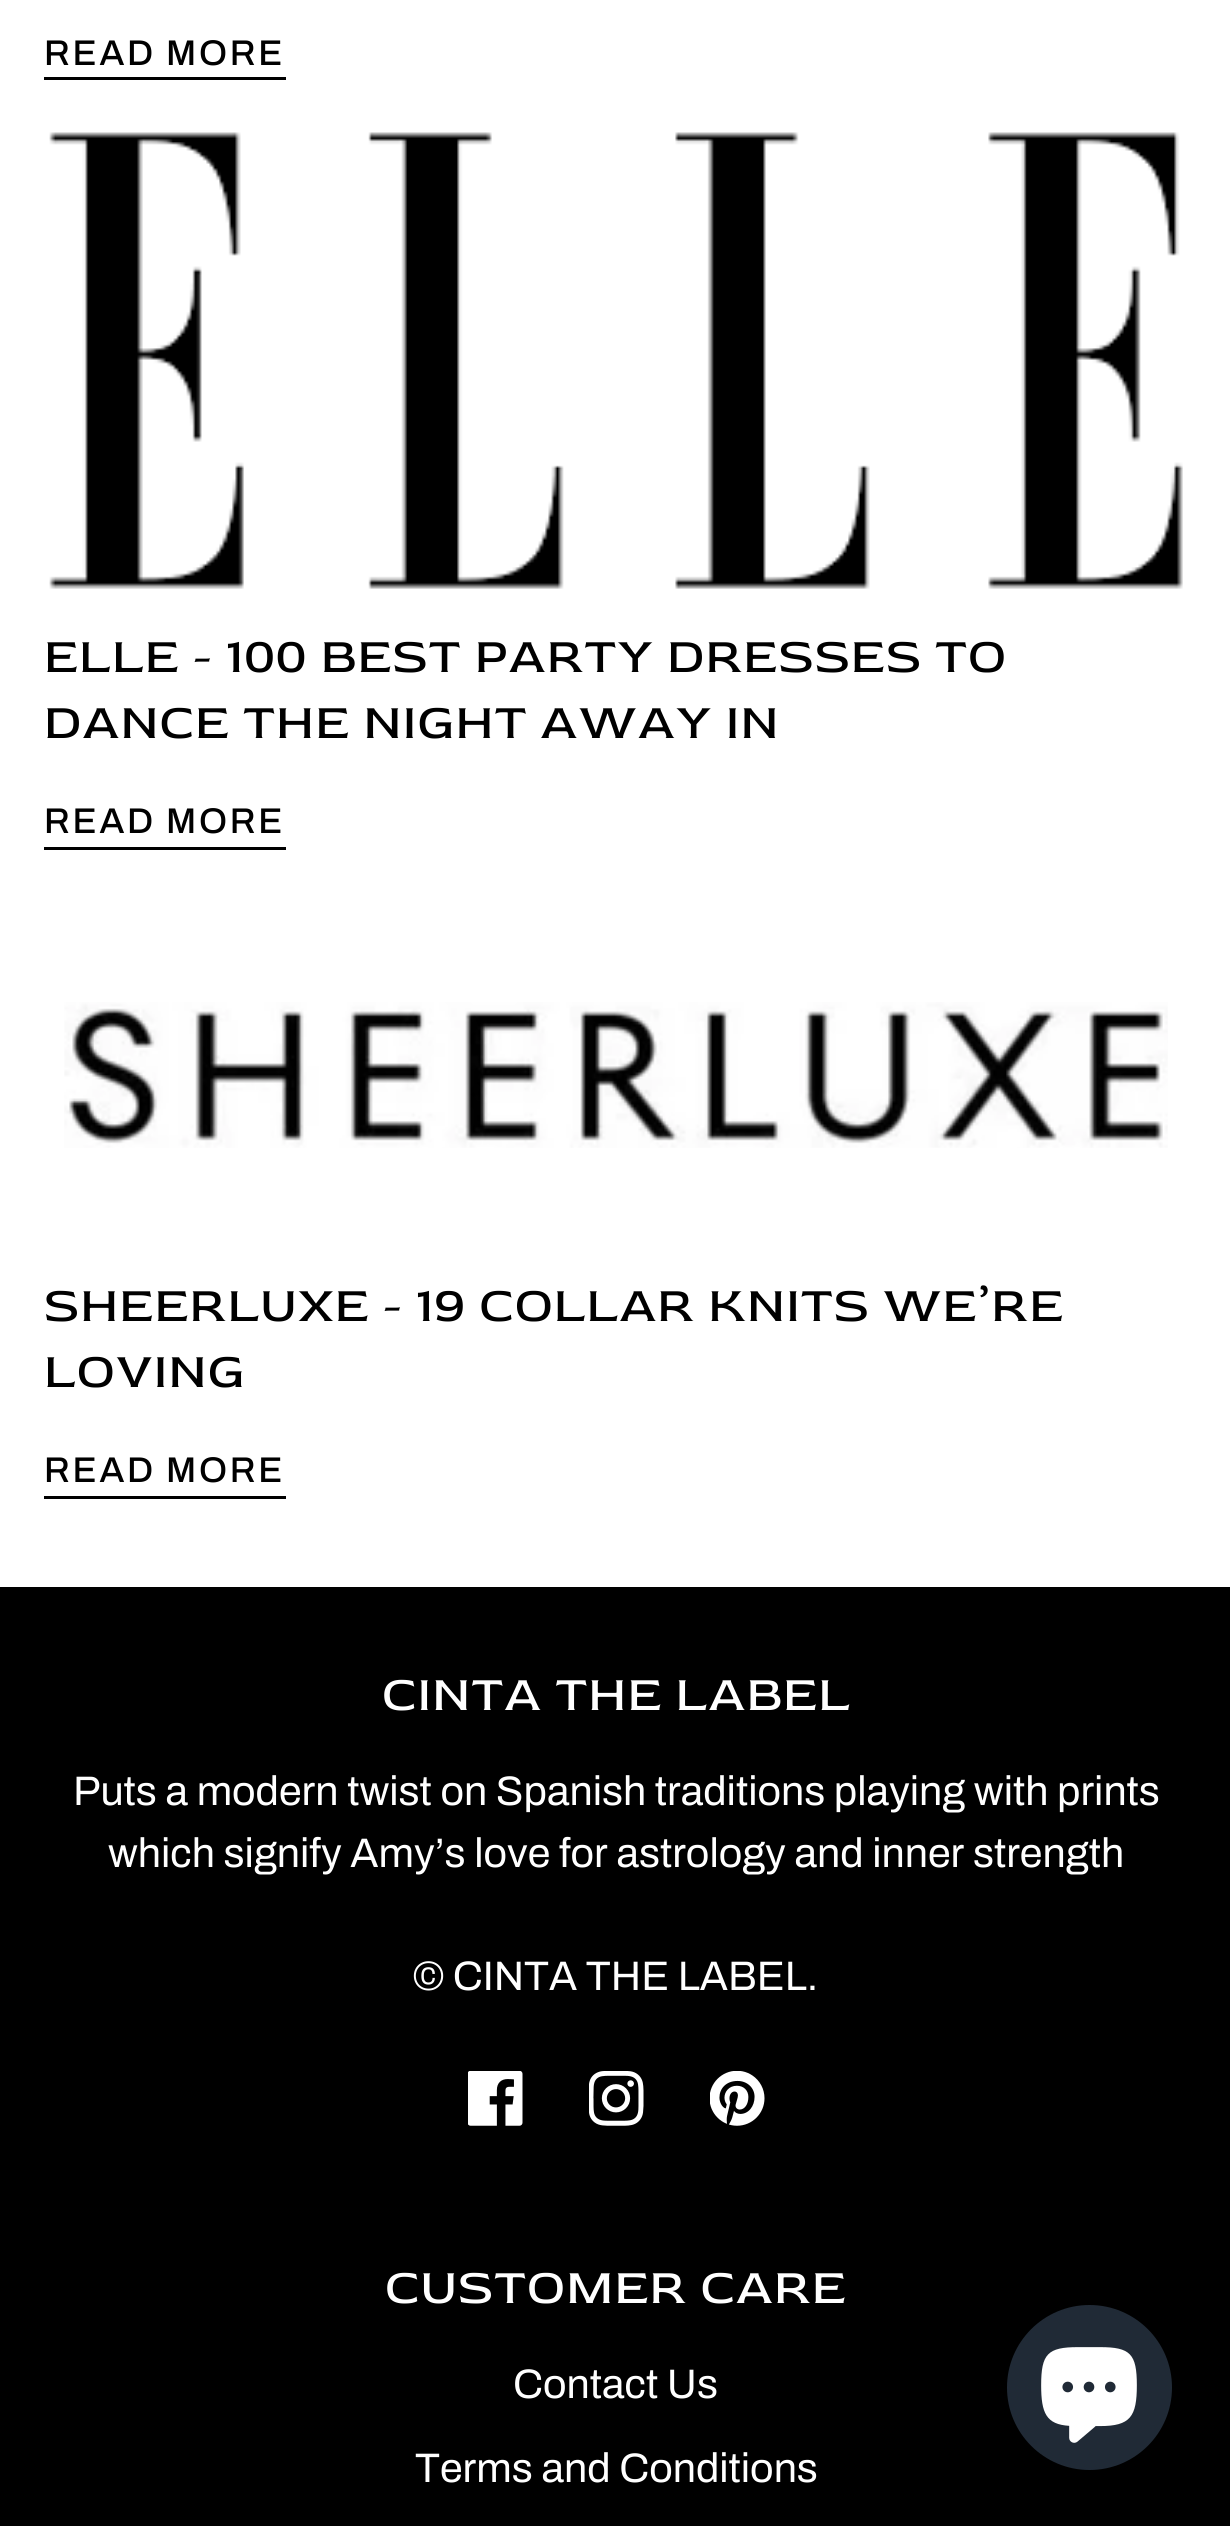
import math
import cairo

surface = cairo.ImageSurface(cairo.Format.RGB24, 1230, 2526)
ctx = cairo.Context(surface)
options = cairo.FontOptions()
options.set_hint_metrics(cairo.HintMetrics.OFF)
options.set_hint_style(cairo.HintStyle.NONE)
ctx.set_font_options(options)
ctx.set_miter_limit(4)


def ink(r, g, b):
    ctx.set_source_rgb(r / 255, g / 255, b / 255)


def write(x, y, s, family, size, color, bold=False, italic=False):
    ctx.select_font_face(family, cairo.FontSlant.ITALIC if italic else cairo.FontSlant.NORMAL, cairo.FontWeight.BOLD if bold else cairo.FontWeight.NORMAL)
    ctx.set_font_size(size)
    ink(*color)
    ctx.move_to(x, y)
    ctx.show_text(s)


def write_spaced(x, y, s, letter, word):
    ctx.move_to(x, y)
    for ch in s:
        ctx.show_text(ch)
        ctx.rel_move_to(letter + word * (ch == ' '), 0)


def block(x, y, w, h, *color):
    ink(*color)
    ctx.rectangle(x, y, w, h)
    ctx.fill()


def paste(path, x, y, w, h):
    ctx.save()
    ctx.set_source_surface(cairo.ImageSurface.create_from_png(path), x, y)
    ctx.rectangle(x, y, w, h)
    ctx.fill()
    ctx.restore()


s1 = dict(family="Archivo", size=41.25, color=(255, 255, 255))

ink(255, 255, 255)
ctx.paint()
ctx.select_font_face("Archivo Medium")
ctx.set_font_size(35.75)
ink(0, 0, 0)
write_spaced(44, 65, "READ MORE", 2.75, 0)
block(44, 77, 242, 3, 0, 0, 0)
paste("pic1.png", 49, 132, 1134, 457)
ctx.select_font_face("Red Rose")
ctx.set_font_size(49.5)
write_spaced(44, 672, "ELLE - 100 BEST PARTY DRESSES TO", 1.25, 0)
write_spaced(44, 738, "DANCE THE NIGHT AWAY IN", 1.25, 0)
ctx.select_font_face("Archivo Medium")
ctx.set_font_size(35.75)
write_spaced(44, 833, "READ MORE", 2.75, 0)
block(44, 847, 242, 3, 0, 0, 0)
paste("pic2.png", 64, 1002, 1104, 146)
ctx.select_font_face("Red Rose")
ctx.set_font_size(49.5)
write_spaced(44, 1321, "SHEERLUXE - 19 COLLAR KNITS WE’RE", 1.25, 0)
write_spaced(44, 1387, "LOVING", 1.25, 0)
ctx.select_font_face("Archivo Medium")
ctx.set_font_size(35.75)
write_spaced(44, 1482, "READ MORE", 2.75, 0)
block(44, 1496, 242, 3, 0, 0, 0)
block(0, 1587, 1230, 939, 0, 0, 0)
ctx.select_font_face("Red Rose")
ctx.set_font_size(49.5)
ink(255, 255, 255)
write_spaced(382, 1710, "CINTA THE LABEL", 1.25, 0)
write(73, 1805, "Puts a modern twist on Spanish traditions playing with prints", **s1)
write(108, 1867, "which signify Amy’s love for astrology and inner strength", **s1)
write(413, 1990, "© CINTA THE LABEL.", **s1)
paste("pic3.png", 468, 2071, 55, 55)
paste("pic4.png", 589, 2071, 55, 55)
paste("pic5.png", 710, 2071, 55, 55)
ctx.select_font_face("Red Rose")
ctx.set_font_size(49.5)
write_spaced(385, 2303, "CUSTOMER CARE", 1.25, 0)
write(513, 2398, "Contact Us", **s1)
write(415, 2482, "Terms and Conditions", **s1)
ink(32, 42, 54)
ctx.new_path()
ctx.arc(1089.5, 2387.5, 82.5, 0, 2 * math.pi)
ctx.fill()
paste("pic6.png", 1041, 2347, 96, 96)
surface.write_to_png("screenshot.png")
